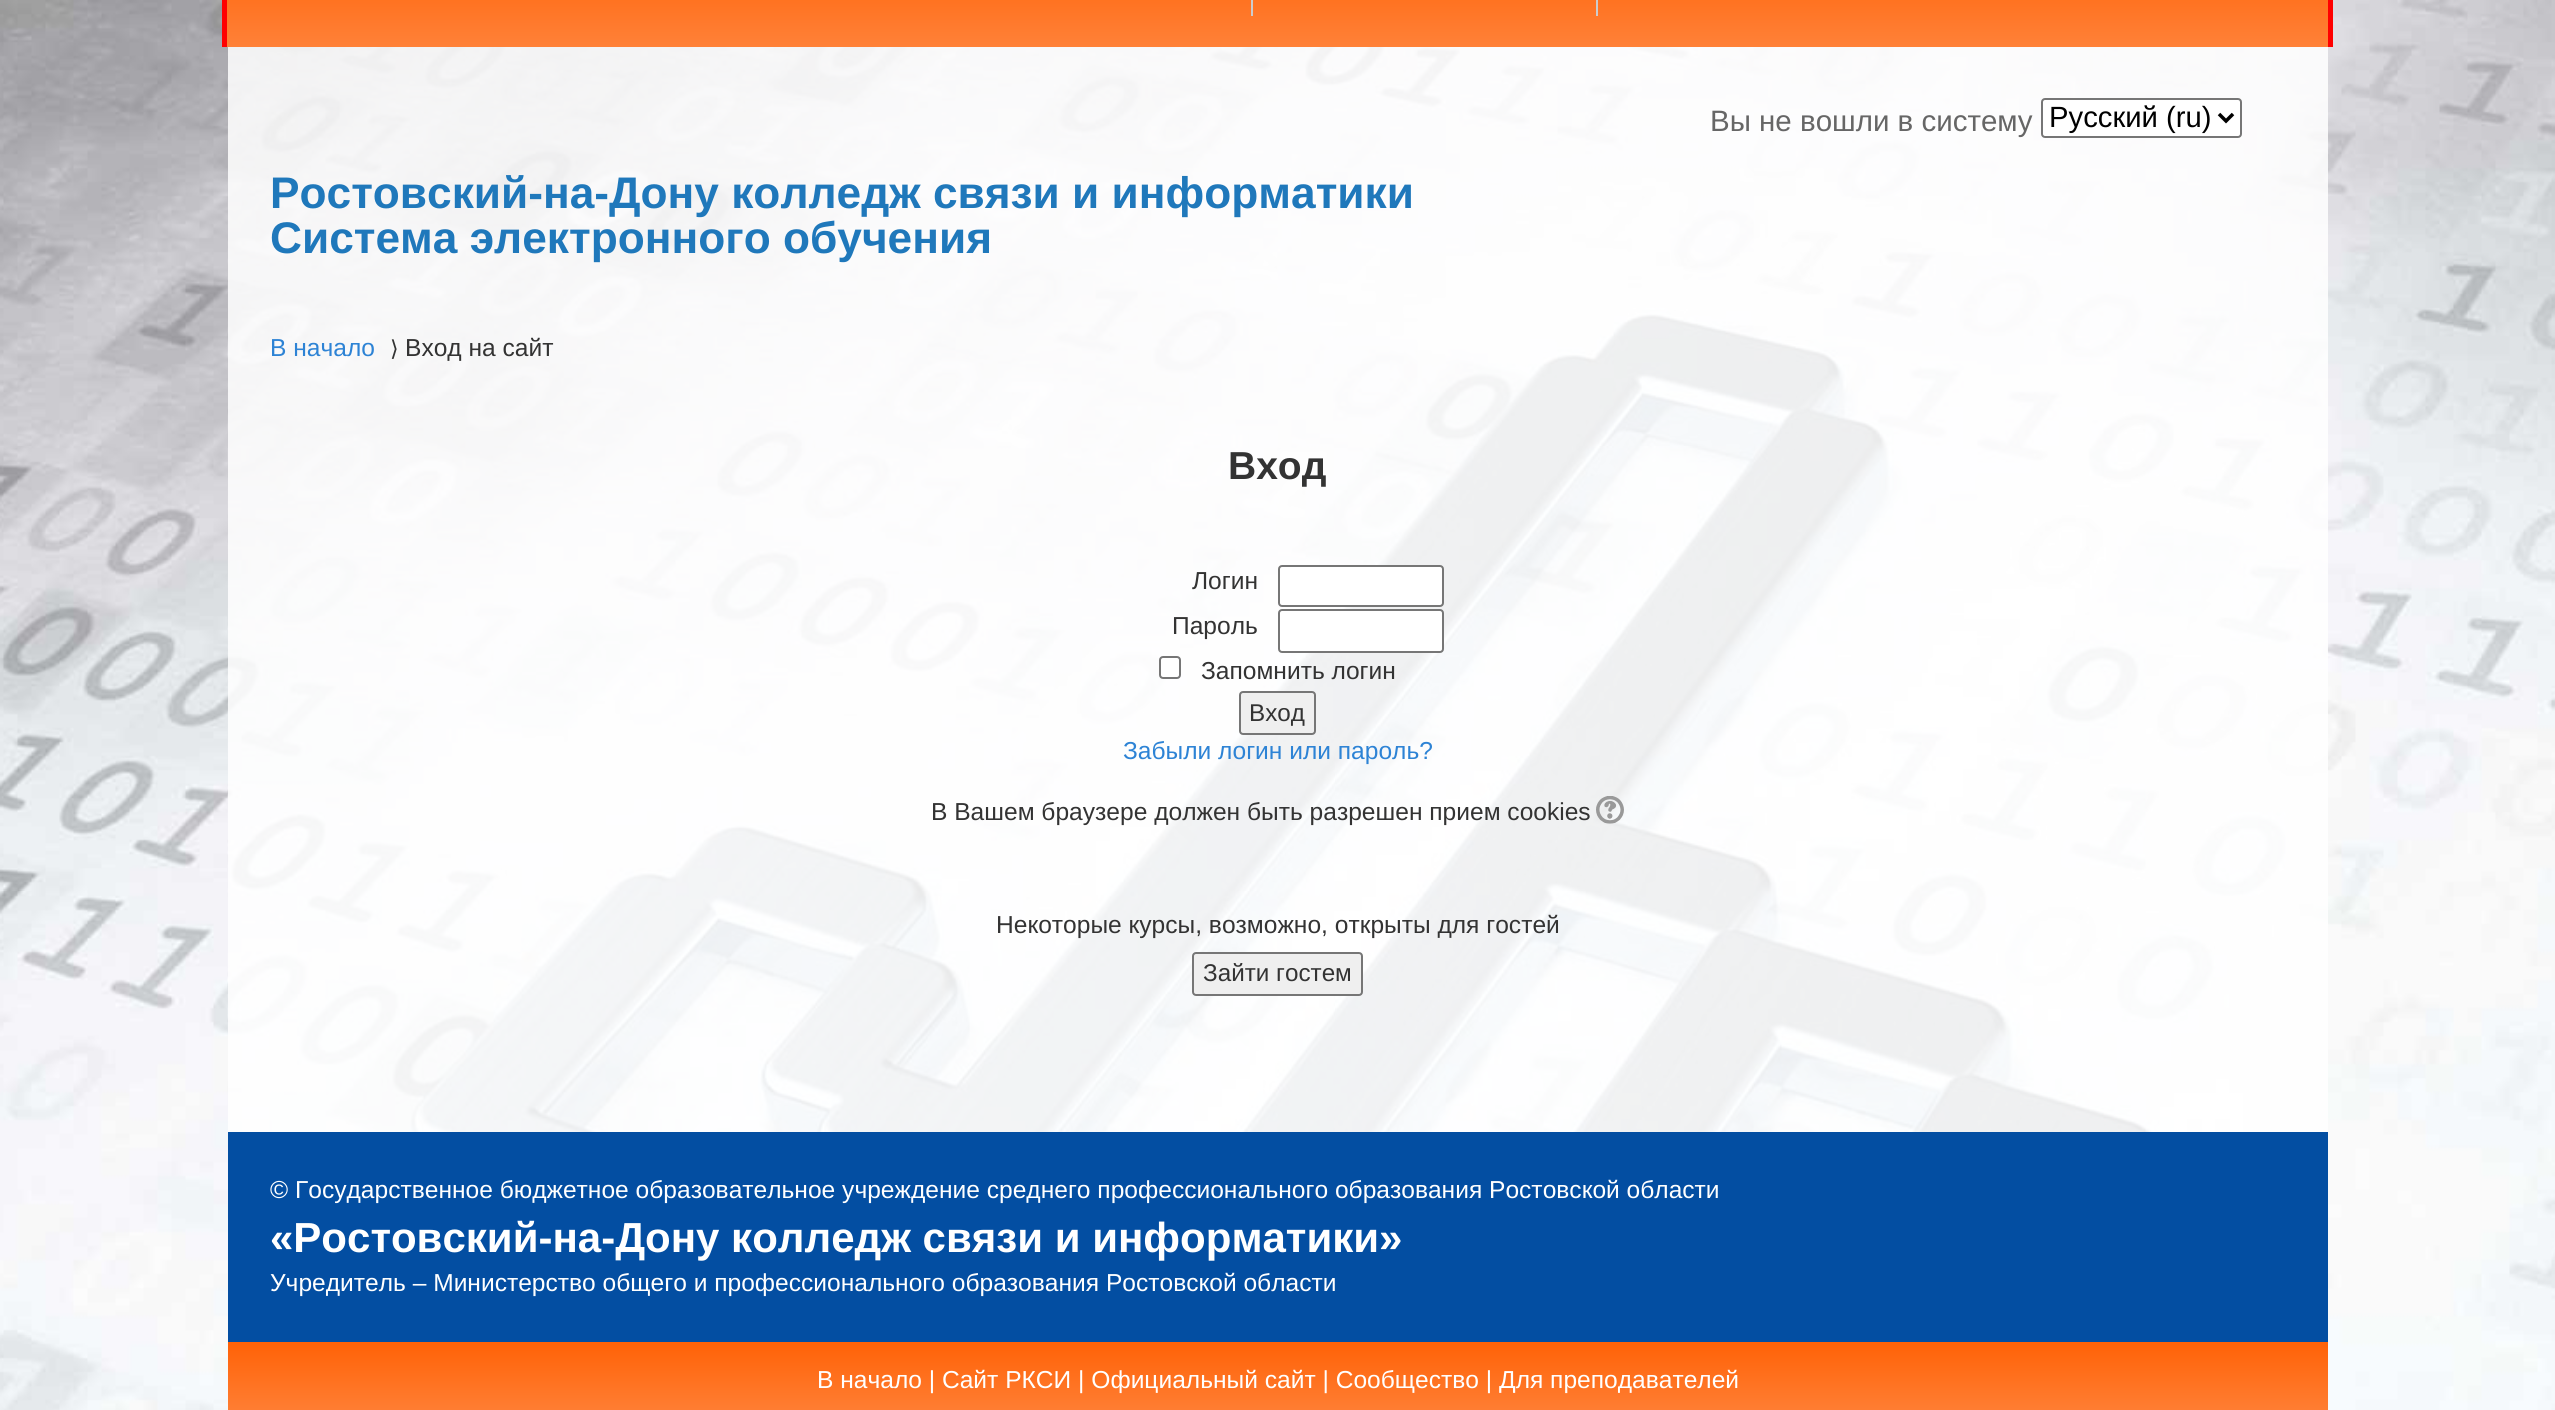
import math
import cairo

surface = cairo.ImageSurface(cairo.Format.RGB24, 2555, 1410)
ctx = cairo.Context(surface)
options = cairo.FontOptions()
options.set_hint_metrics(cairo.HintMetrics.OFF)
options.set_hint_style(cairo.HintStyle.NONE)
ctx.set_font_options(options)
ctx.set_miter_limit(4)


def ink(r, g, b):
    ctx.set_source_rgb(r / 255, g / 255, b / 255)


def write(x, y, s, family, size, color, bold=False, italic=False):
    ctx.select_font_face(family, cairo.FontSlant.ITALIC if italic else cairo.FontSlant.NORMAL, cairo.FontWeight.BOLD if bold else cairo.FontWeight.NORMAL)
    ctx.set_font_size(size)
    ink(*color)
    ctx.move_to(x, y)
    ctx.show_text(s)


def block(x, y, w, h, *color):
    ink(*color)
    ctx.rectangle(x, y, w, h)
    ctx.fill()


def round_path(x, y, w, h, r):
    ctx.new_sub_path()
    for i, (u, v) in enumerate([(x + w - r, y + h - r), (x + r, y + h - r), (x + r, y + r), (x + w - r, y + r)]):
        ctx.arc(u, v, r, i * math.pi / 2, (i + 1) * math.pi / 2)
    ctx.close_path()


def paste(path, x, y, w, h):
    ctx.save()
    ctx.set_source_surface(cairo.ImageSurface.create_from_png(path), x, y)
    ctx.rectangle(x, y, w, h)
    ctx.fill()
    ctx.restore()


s1 = dict(family="Liberation Sans", size=29.5, color=(102, 102, 102))
s2 = dict(family="Liberation Sans", size=29.25, color=(0, 0, 0))
s3 = dict(family="Liberation Sans", size=44.25, color=(31, 120, 187), bold=True)
s4 = dict(family="Liberation Sans", size=24.57, color=(45, 131, 213))
s5 = dict(family="DejaVu Sans", size=22, color=(51, 51, 51))
s6 = dict(family="Liberation Sans", size=24.57, color=(51, 51, 51))
s7 = dict(family="Liberation Sans", size=39, color=(51, 51, 51), bold=True)
s8 = dict(family="Liberation Sans", size=24.25, color=(51, 51, 51))
s9 = dict(family="Liberation Sans", size=24.57, color=(255, 255, 255))
s10 = dict(family="Liberation Sans", size=42, color=(255, 255, 255), bold=True)

ink(255, 255, 255)
ctx.paint()
paste("pic1.png", 0, 0, 2555, 1410)
ctx.set_source_rgba(1, 1, 1, 0.85)
ctx.rectangle(228, 47, 2100, 1085)
ctx.fill()
gradient = cairo.LinearGradient(1278, -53, 1278, 47)
gradient.add_color_stop_rgba(0, 1, 0.384, 0.027, 1)
gradient.add_color_stop_rgba(1, 1, 0.506, 0.22, 1)
ctx.set_source(gradient)
ctx.rectangle(227, 0, 2101, 47)
ctx.fill()
block(2328, 0, 5, 47, 255, 0, 0)
block(222, 0, 5, 47, 255, 0, 0)
ink(204, 204, 204)
ctx.new_path()
ctx.move_to(754, 16)
ctx.line_to(1253, 16)
ctx.line_to(1253, -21)
ctx.line_to(1251, -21)
ctx.line_to(1251, 16)
ctx.close_path()
ctx.fill()
ctx.new_path()
ctx.move_to(1253, 16)
ctx.line_to(1598, 16)
ctx.line_to(1598, -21)
ctx.line_to(1596, -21)
ctx.line_to(1596, 16)
ctx.close_path()
ctx.fill()
write(1710, 131, "Вы не вошли в систему", **s1)
ink(255, 255, 255)
round_path(2042, 99, 199, 38, 3)
ctx.fill_preserve()
ink(118, 118, 118)
ctx.stroke()
ctx.new_path()
ctx.move_to(2219, 114)
ctx.line_to(2226, 121)
ctx.line_to(2233, 114)
ink(0, 0, 0)
ctx.set_line_width(3.5)
ctx.stroke()
write(2049, 127, "Русский (ru)", **s2)
write(270, 208, "Ростовский-на-Дону колледж связи и информатики", **s3)
write(270, 253, "Система электронного обучения", **s3)
write(270, 356, "В начало", **s4)
write(390, 356, "⟩", **s5)
write(405, 356, "Вход на сайт", **s6)
write(1228, 479, "Вход", **s7)
write(1192, 589, "Логин", **s6)
ink(255, 255, 255)
round_path(1279, 566, 164, 40, 3)
ctx.fill_preserve()
ink(118, 118, 118)
ctx.set_line_width(2)
ctx.stroke()
write(1172, 634, "Пароль", **s6)
ink(255, 255, 255)
round_path(1279, 610, 164, 42, 3)
ctx.fill_preserve()
ink(118, 118, 118)
ctx.stroke()
ink(255, 255, 255)
round_path(1160, 657, 20, 21, 3)
ctx.fill_preserve()
ink(118, 118, 118)
ctx.stroke()
write(1201, 679, "Запомнить логин", **s6)
ink(239, 239, 239)
round_path(1240, 692, 75, 42, 3)
ctx.fill_preserve()
ink(118, 118, 118)
ctx.stroke()
write(1249, 721, "Вход", **s8)
write(1123, 759, "Забыли логин или пароль?", **s4)
write(931, 820, "В Вашем браузере должен быть разрешен прием cookies", **s6)
paste("pic2.png", 1596, 796, 28, 28)
write(996, 933, "Некоторые курсы, возможно, открыты для гостей", **s6)
ink(239, 239, 239)
round_path(1193, 953, 169, 42, 3)
ctx.fill_preserve()
ink(118, 118, 118)
ctx.stroke()
write(1203, 981, "Зайти гостем", **s8)
block(228, 1132, 2100, 210, 3, 78, 162)
write(270, 1198, "© Государственное бюджетное образовательное учреждение среднего профессионального образования Ростовской области", **s9)
write(270, 1252, "«Ростовский-на-Дону колледж связи и информатики»", **s10)
write(270, 1291, "Учредитель – Министерство общего и профессионального образования Ростовской области", **s9)
gradient = cairo.LinearGradient(1278, 1342, 1278, 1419)
gradient.add_color_stop_rgba(0, 1, 0.384, 0.027, 1)
gradient.add_color_stop_rgba(1, 1, 0.506, 0.22, 1)
ctx.set_source(gradient)
ctx.rectangle(228, 1342, 2100, 68)
ctx.fill()
write(817, 1388, "В начало | Сайт РКСИ | Официальный сайт | Сообщество | Для преподавателей", **s9)
surface.write_to_png("screenshot.png")
